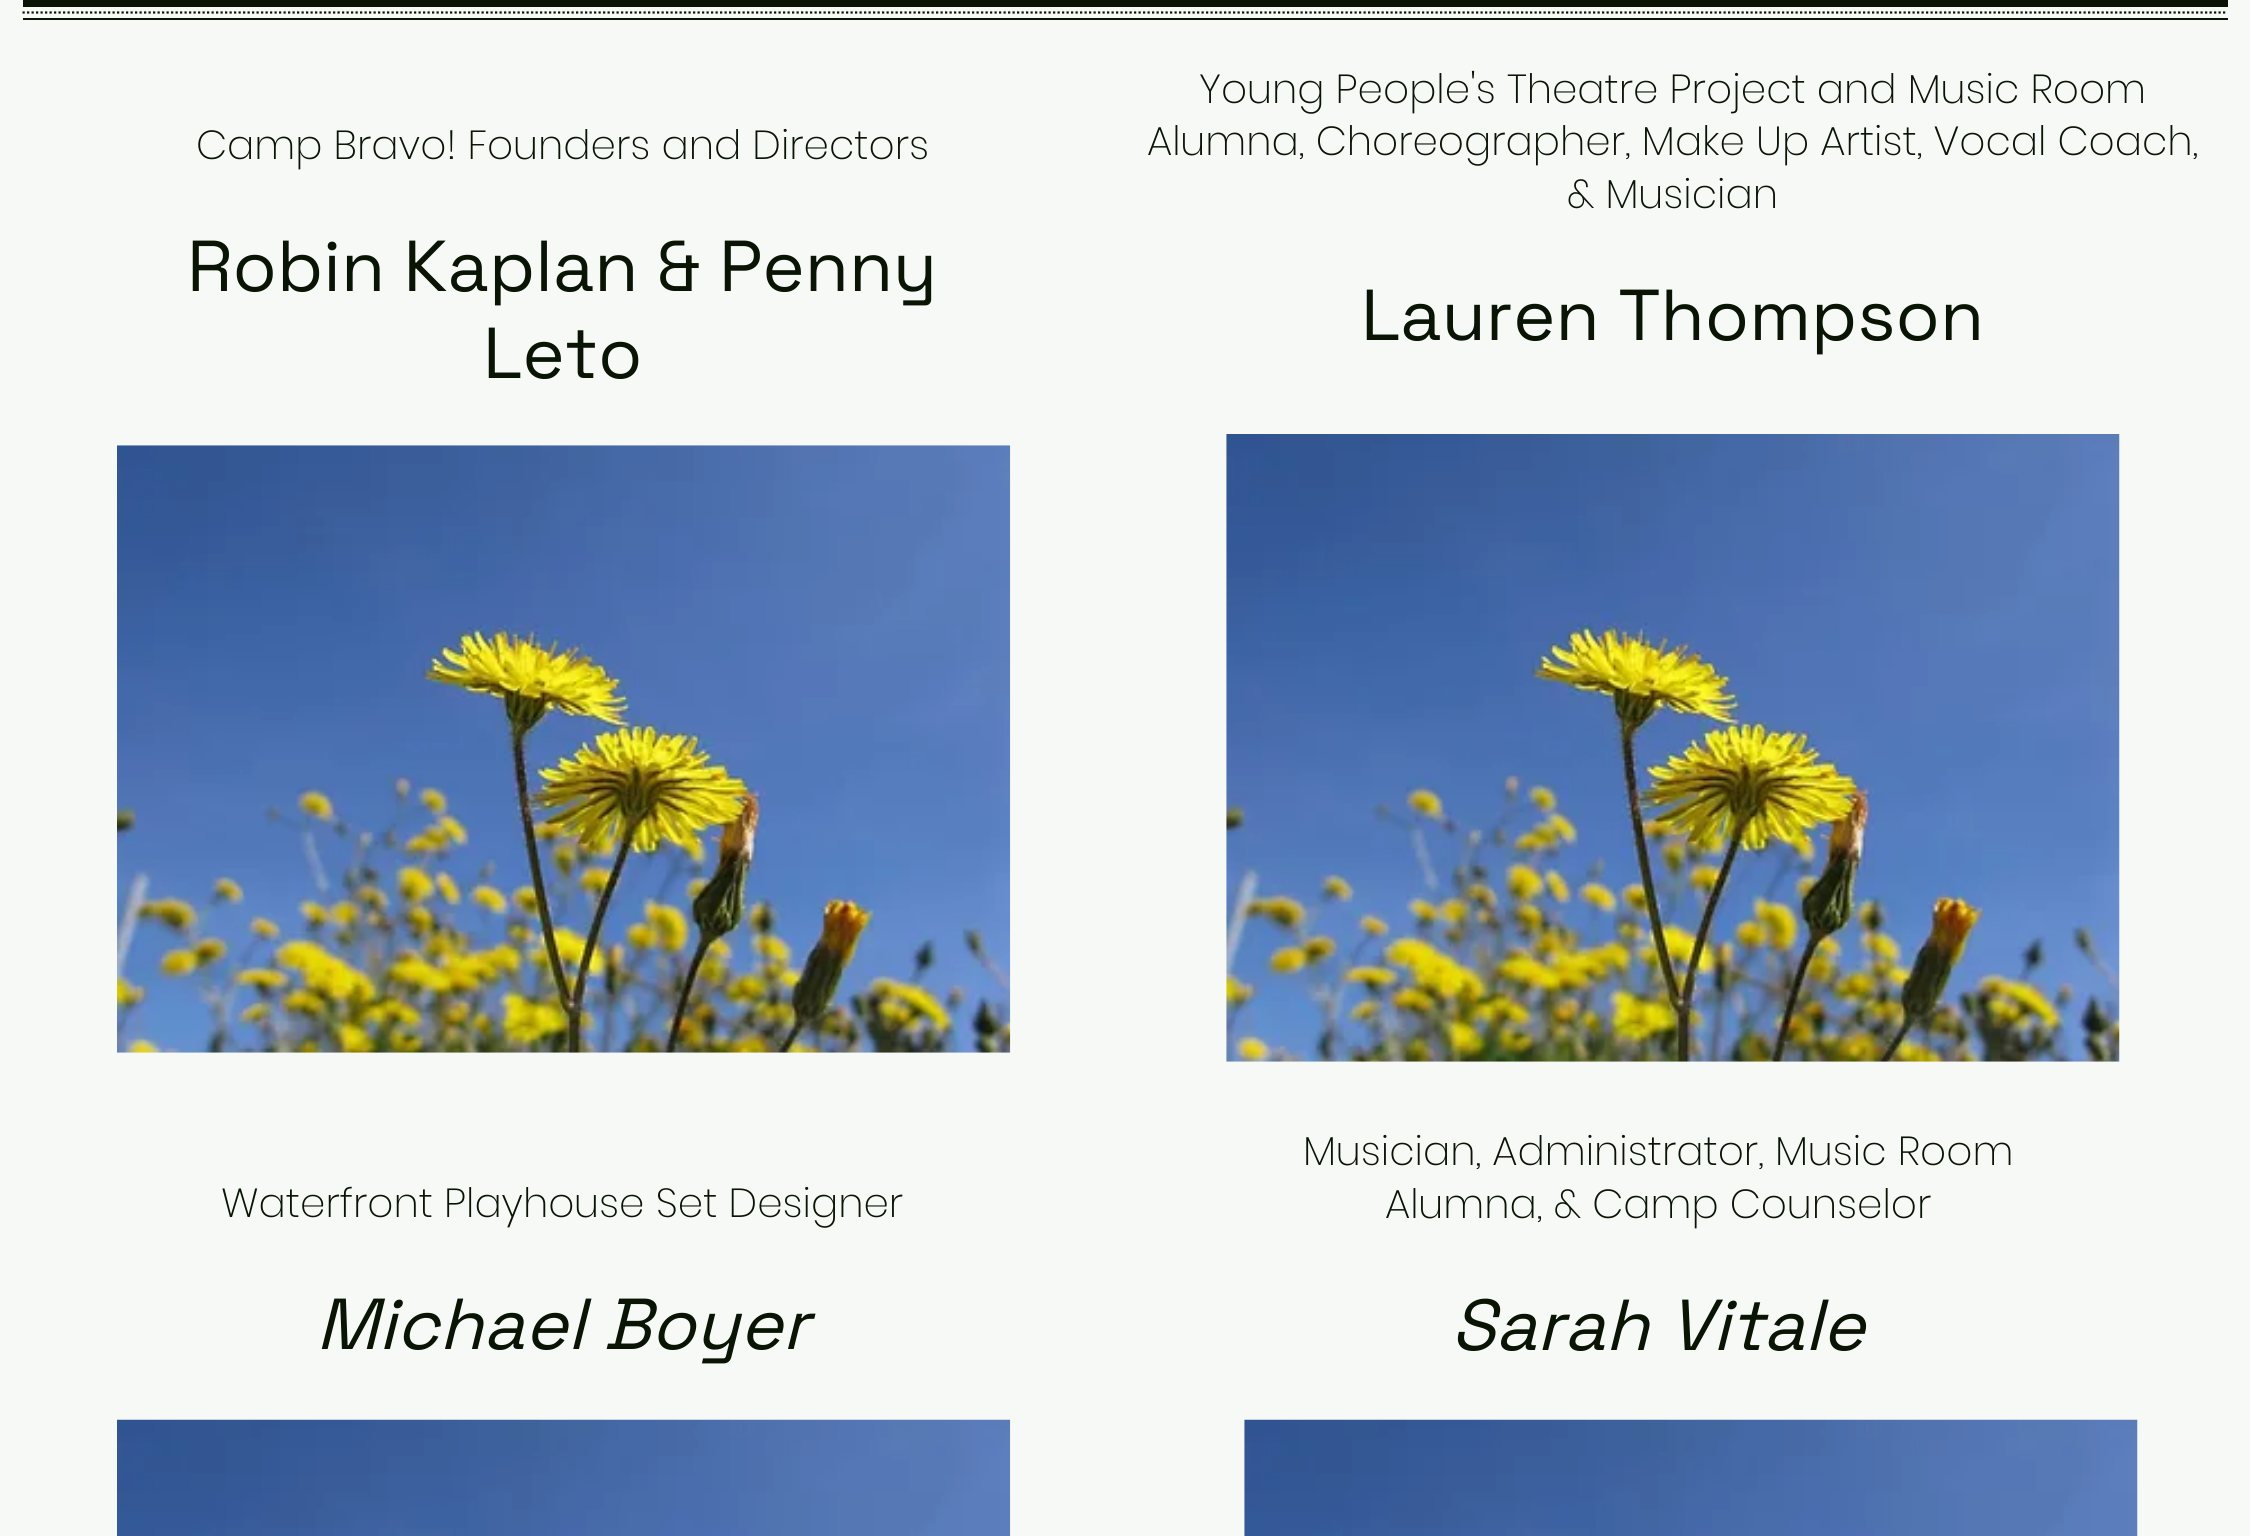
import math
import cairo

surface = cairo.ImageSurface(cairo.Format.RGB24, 2250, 1536)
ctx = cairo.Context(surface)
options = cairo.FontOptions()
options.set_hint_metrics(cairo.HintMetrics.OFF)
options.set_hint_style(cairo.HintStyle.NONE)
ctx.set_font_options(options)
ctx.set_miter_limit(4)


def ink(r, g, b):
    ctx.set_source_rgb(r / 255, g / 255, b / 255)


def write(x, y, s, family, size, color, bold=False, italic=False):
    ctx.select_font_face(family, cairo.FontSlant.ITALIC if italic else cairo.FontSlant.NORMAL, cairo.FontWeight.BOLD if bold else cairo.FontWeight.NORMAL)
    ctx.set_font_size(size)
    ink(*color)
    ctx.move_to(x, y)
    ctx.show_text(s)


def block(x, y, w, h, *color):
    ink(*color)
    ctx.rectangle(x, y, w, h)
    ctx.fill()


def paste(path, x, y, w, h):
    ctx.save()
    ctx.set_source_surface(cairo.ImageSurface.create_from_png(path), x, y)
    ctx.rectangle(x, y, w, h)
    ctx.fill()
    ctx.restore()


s1 = dict(family="Poppins ExtraLight", size=40.5, color=(9, 20, 5))
s2 = dict(family="Space Grotesk", size=72, color=(9, 20, 5))
s3 = dict(family="Space Grotesk", size=72, color=(9, 20, 5), italic=True)

ink(246, 249, 245)
ctx.paint()
block(23, 0, 2205, 7, 9, 20, 5)
block(23, 18, 2205, 2, 9, 20, 5)
ctx.new_path()
ctx.move_to(22.5, 12.5)
ctx.line_to(2227.5, 12.5)
ctx.set_line_width(2.2)
ctx.set_dash([2.25, 2.25])
ctx.stroke()
write(196, 159, "Camp Bravo! Founders and Directors", **s1)
write(187, 291, "Robin Kaplan & Penny", **s2)
write(483, 378, "Leto", **s2)
write(1199, 103, "Young People's Theatre Project and Music Room", **s1)
write(1147, 155, "Alumna, Choreographer, Make Up Artist, Vocal Coach,", **s1)
write(1567, 208, "& Musician", **s1)
write(1361, 340, "Lauren Thompson", **s2)
paste("pic1.png", 117, 445, 894, 608)
paste("pic2.png", 1226, 434, 894, 628)
write(221, 1217, "Waterfront Playhouse Set Designer", **s1)
write(316, 1349, "Michael Boyer", **s3)
write(1303, 1165, "Musician, Administrator, Music Room", **s1)
write(1385, 1218, "Alumna, & Camp Counselor", **s1)
write(1451, 1350, "Sarah Vitale", **s3)
paste("pic3.png", 117, 1419, 894, 117)
paste("pic4.png", 1244, 1419, 894, 117)
surface.write_to_png("screenshot.png")
